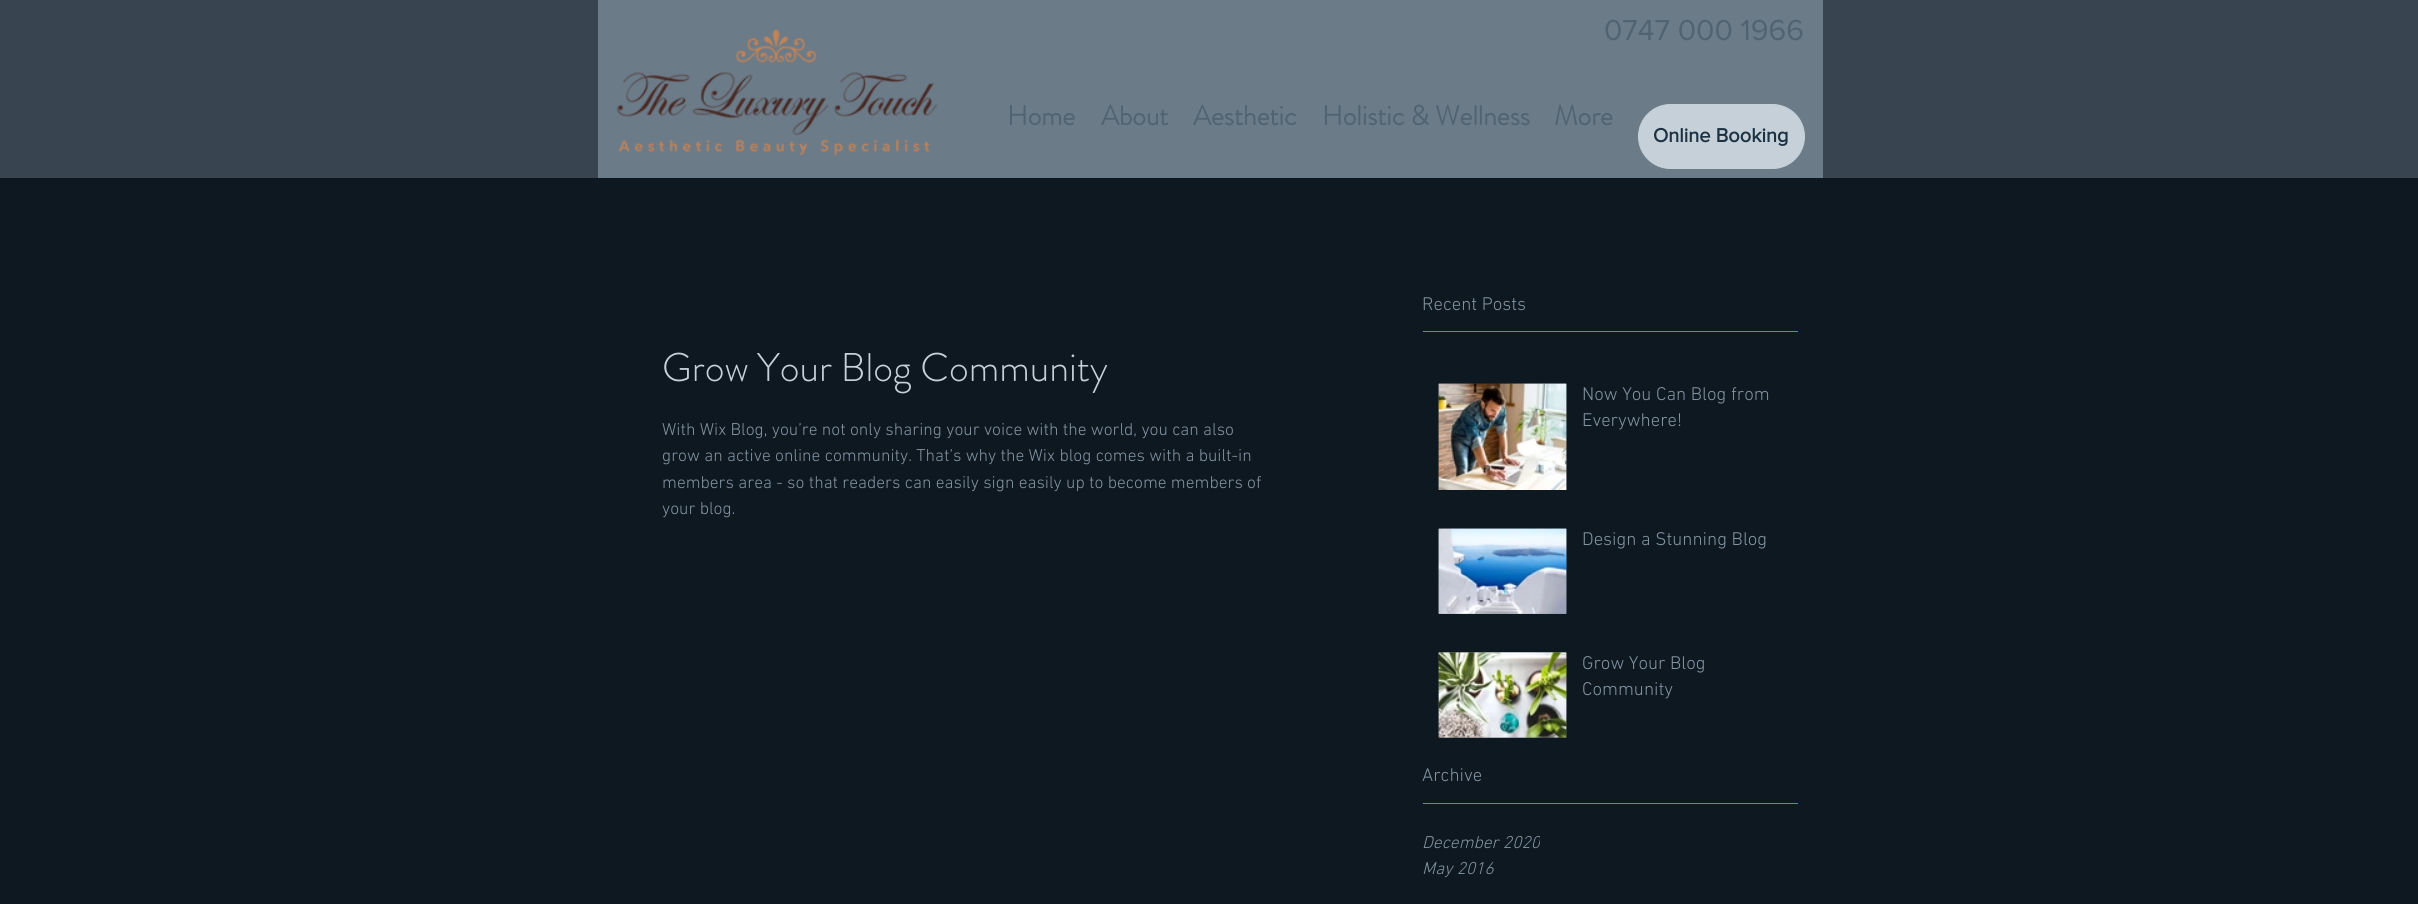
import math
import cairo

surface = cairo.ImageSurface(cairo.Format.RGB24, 2418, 904)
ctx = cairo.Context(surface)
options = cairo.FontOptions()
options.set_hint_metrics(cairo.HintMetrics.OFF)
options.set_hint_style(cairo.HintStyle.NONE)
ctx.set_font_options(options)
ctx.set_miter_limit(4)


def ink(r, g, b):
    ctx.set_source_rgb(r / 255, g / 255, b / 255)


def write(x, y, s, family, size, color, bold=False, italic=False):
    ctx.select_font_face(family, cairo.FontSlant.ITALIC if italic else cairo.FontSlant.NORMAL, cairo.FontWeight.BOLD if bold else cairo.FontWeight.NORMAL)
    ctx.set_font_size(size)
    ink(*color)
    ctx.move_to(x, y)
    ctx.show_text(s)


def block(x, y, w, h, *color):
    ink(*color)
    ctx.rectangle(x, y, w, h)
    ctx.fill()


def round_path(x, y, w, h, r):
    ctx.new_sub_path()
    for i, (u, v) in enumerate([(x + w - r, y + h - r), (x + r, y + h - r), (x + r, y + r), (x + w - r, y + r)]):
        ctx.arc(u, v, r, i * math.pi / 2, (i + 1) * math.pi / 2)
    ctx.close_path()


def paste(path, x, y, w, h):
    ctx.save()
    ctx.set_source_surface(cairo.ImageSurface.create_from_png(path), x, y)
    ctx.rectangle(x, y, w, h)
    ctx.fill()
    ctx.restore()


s1 = dict(family="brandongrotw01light", size=27.5, color=(81, 99, 113), bold=True)
s2 = dict(family="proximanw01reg", size=30, color=(81, 99, 113))
s3 = dict(family="proximanw01reg", size=20, color=(28, 49, 66), bold=True)
s4 = dict(family="brandongrotw01light Light", size=40, color=(197, 208, 217))
s5 = dict(family="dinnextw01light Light", size=17.5, color=(130, 147, 161))
s6 = dict(family="dinnextw01light Light", size=18.75, color=(130, 147, 161))
s7 = dict(family="dinnextw01light Light", size=17.5, color=(130, 147, 161), italic=True)

ink(14, 24, 33)
ctx.paint()
block(0, 0, 2418, 178, 56, 68, 79)
block(598, 0, 1225, 178, 108, 123, 136)
paste("pic1.png", 616, 29, 322, 127)
write(1007, 125, "Home", **s1)
write(1101, 125, "About", **s1)
write(1193, 125, "Aesthetic", **s1)
write(1322, 125, "Holistic & Wellness", **s1)
write(1554, 125, "More", **s1)
write(1604, 40, "0747 000 1966", **s2)
ink(197, 208, 217)
round_path(1638.5, 104.5, 166, 64, 32)
ctx.fill_preserve()
ctx.set_line_width(1)
ctx.stroke()
write(1653, 142, "Online Booking", **s3)
write(662, 381, "Grow Your Blog Community", **s4)
write(662, 435, "With Wix Blog, you’re not only sharing your voice with the world, you can also", **s5)
write(662, 461, "grow an active online community. That’s why the Wix blog comes with a built-in", **s5)
write(662, 488, "members area - so that readers can easily sign easily up to become members of", **s5)
write(662, 514, "your blog.", **s5)
write(1422, 310, "Recent Posts", **s6)
block(1423, 331, 375, 1, 91, 126, 224)
paste("pic2.png", 1438, 383, 129, 107)
paste("pic3.png", 1438, 383, 129, 107)
write(1582, 400, "Now You Can Blog from", **s6)
write(1582, 426, "Everywhere!", **s6)
paste("pic4.png", 1438, 528, 129, 86)
paste("pic5.png", 1438, 528, 129, 86)
write(1582, 545, "Design a Stunning Blog", **s6)
paste("pic6.png", 1438, 652, 129, 86)
paste("pic7.png", 1438, 652, 129, 86)
write(1582, 669, "Grow Your Blog", **s6)
write(1582, 695, "Community", **s6)
write(1422, 781, "Archive", **s6)
block(1423, 803, 375, 1, 91, 126, 224)
ctx.save()
ctx.rectangle(1423, 830, 117, 26)
ctx.clip()
write(1422, 848, "December 2020", **s7)
ctx.restore()
write(1422, 874, "May 2016", **s7)
surface.write_to_png("screenshot.png")
